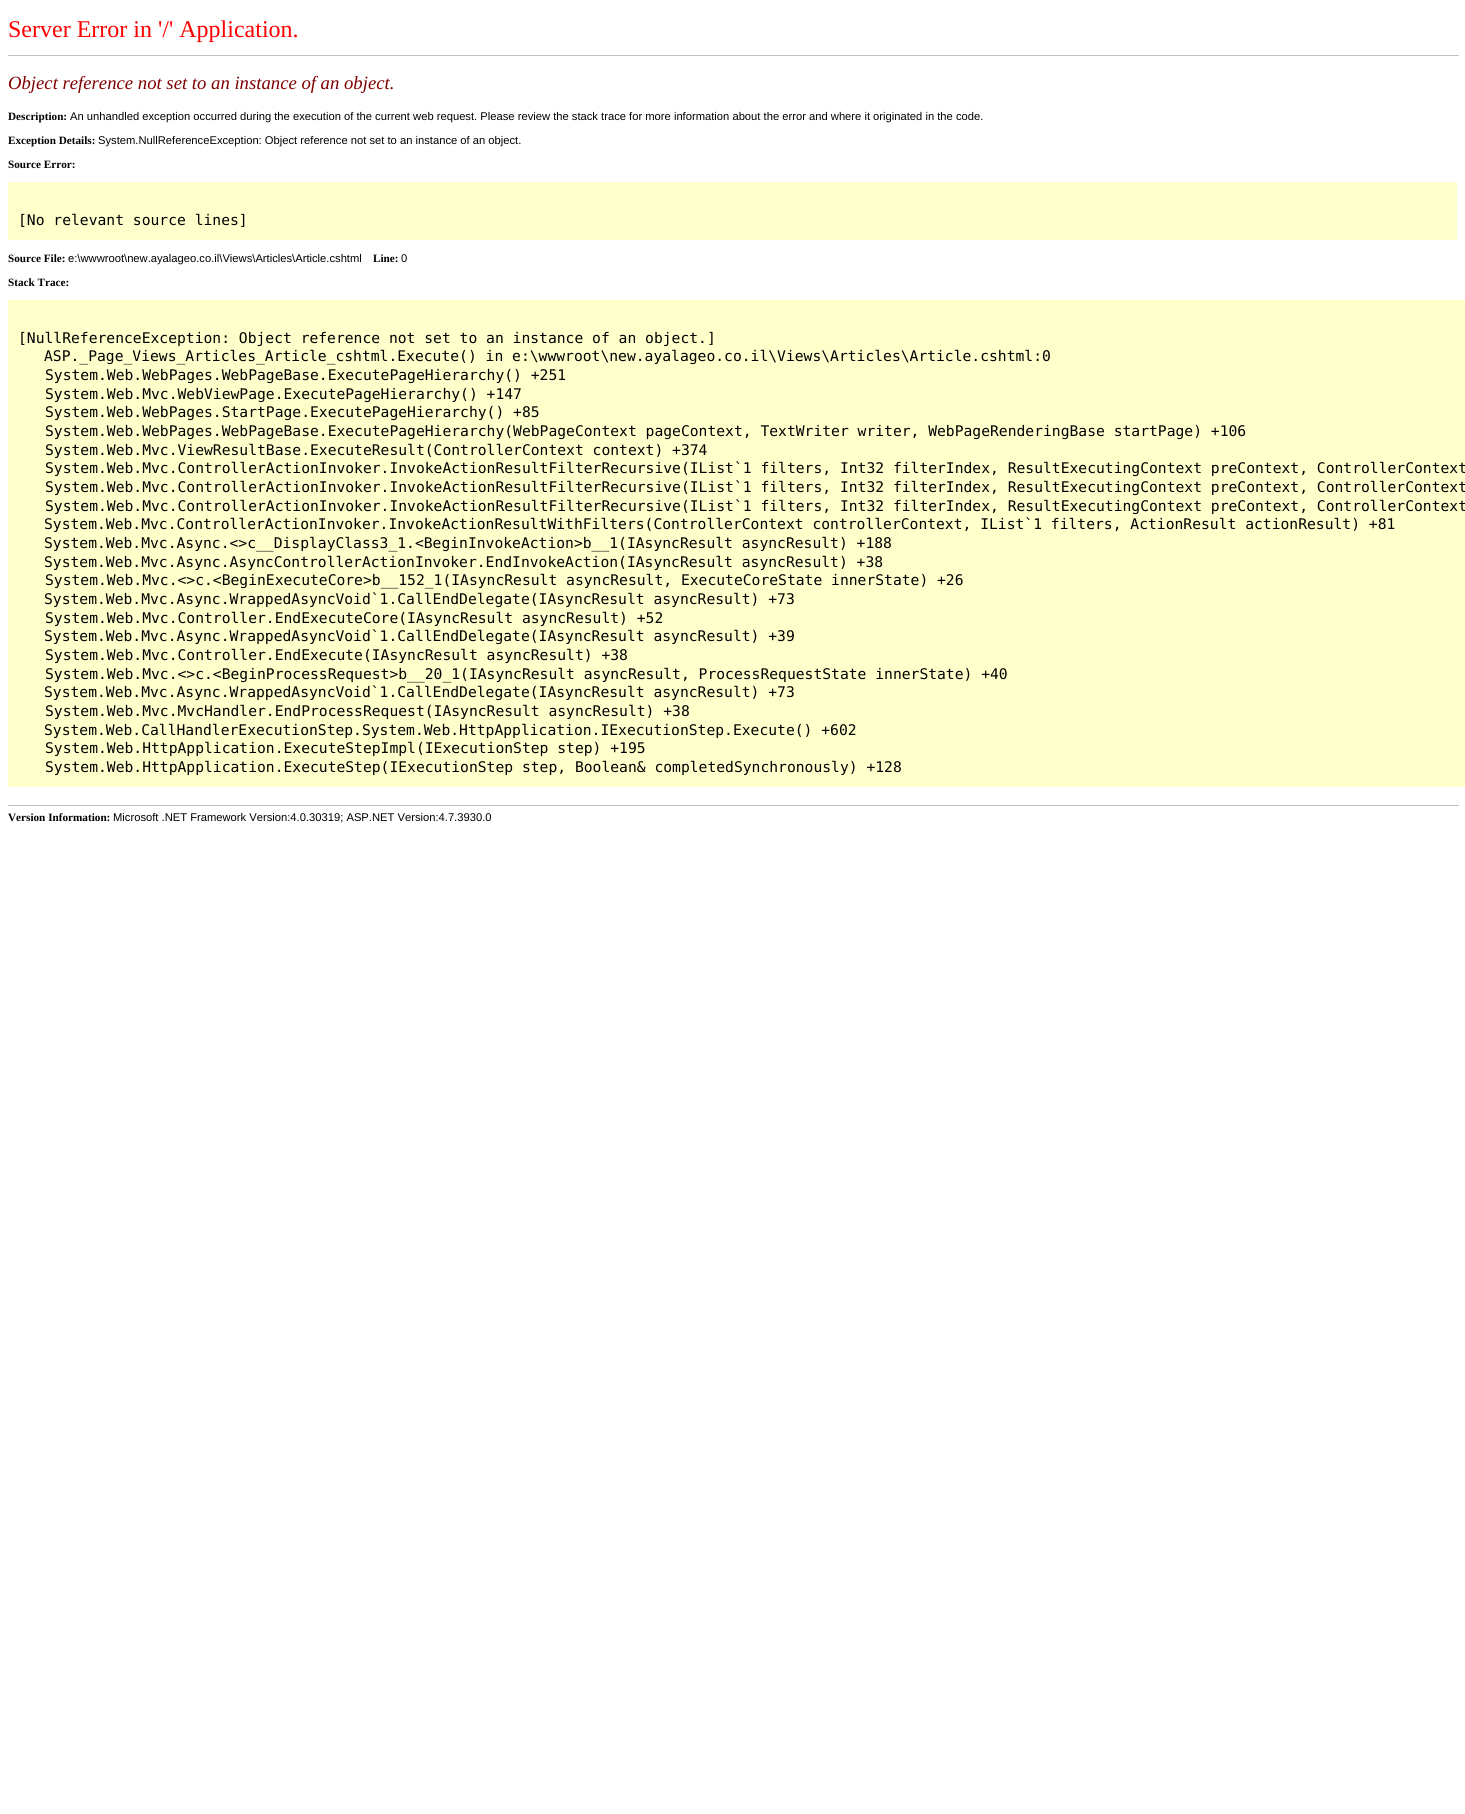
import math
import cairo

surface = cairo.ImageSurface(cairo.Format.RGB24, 1465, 1814)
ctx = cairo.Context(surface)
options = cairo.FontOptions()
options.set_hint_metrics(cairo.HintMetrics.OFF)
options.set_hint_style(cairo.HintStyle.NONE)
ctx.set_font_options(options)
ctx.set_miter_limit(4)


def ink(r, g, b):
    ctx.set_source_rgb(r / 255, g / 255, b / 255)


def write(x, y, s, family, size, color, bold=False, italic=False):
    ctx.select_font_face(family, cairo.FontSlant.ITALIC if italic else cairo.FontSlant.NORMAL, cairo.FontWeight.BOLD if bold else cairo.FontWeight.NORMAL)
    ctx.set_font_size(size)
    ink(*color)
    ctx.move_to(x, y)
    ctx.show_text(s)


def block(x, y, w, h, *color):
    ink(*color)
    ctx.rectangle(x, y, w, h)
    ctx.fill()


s1 = dict(family="Liberation Serif", size=24, color=(255, 0, 0))
s2 = dict(family="Liberation Serif", size=18.7, color=(128, 0, 0), italic=True)
s3 = dict(family="Liberation Serif", size=11.2, color=(0, 0, 0), bold=True)
s4 = dict(family="Liberation Sans", size=11.2, color=(0, 0, 0))
s5 = dict(family="DejaVu Sans Mono", size=14.67, color=(0, 0, 0))

ink(255, 255, 255)
ctx.paint()
write(8, 37, "Server Error in '/' Application.", **s1)
block(8, 55, 1451, 1, 192, 192, 192)
write(8, 89, "Object reference not set to an instance of an object.", **s2)
write(8, 120, "Description:", **s3)
write(70, 120, "An unhandled exception occurred during the execution of the current web request. Please review the stack trace for more information about the error and where it originated in the code.", **s4)
write(8, 144, "Exception Details:", **s3)
write(98, 144, "System.NullReferenceException: Object reference not set to an instance of an object.", **s4)
write(8, 168, "Source Error:", **s3)
block(8, 182, 1449, 58, 255, 255, 204)
write(18, 225, "[No relevant source lines]", **s5)
write(8, 262, "Source File:", **s3)
write(68, 262, "e:\\wwwroot\\new.ayalageo.co.il\\Views\\Articles\\Article.cshtml", **s4)
write(373, 262, "Line:", **s3)
write(401, 262, "0", **s4)
write(8, 286, "Stack Trace:", **s3)
block(8, 300, 1457, 487, 255, 255, 204)
write(18, 343, "[NullReferenceException: Object reference not set to an instance of an object.]", **s5)
write(44, 361, "ASP._Page_Views_Articles_Article_cshtml.Execute() in e:\\wwwroot\\new.ayalageo.co.il\\Views\\Articles\\Article.cshtml:0", **s5)
write(45, 380, "System.Web.WebPages.WebPageBase.ExecutePageHierarchy() +251", **s5)
write(45, 399, "System.Web.Mvc.WebViewPage.ExecutePageHierarchy() +147", **s5)
write(45, 417, "System.Web.WebPages.StartPage.ExecutePageHierarchy() +85", **s5)
write(45, 436, "System.Web.WebPages.WebPageBase.ExecutePageHierarchy(WebPageContext pageContext, TextWriter writer, WebPageRenderingBase startPage) +106", **s5)
write(45, 455, "System.Web.Mvc.ViewResultBase.ExecuteResult(ControllerContext context) +374", **s5)
write(45, 473, "System.Web.Mvc.ControllerActionInvoker.InvokeActionResultFilterRecursive(IList`1 filters, Int32 filterIndex, ResultExecutingContext preContext, ControllerContext", **s5)
write(45, 492, "System.Web.Mvc.ControllerActionInvoker.InvokeActionResultFilterRecursive(IList`1 filters, Int32 filterIndex, ResultExecutingContext preContext, ControllerContext", **s5)
write(45, 511, "System.Web.Mvc.ControllerActionInvoker.InvokeActionResultFilterRecursive(IList`1 filters, Int32 filterIndex, ResultExecutingContext preContext, ControllerContext", **s5)
write(44, 529, "System.Web.Mvc.ControllerActionInvoker.InvokeActionResultWithFilters(ControllerContext controllerContext, IList`1 filters, ActionResult actionResult) +81", **s5)
write(44, 548, "System.Web.Mvc.Async.<>c__DisplayClass3_1.<BeginInvokeAction>b__1(IAsyncResult asyncResult) +188", **s5)
write(44, 567, "System.Web.Mvc.Async.AsyncControllerActionInvoker.EndInvokeAction(IAsyncResult asyncResult) +38", **s5)
write(45, 585, "System.Web.Mvc.<>c.<BeginExecuteCore>b__152_1(IAsyncResult asyncResult, ExecuteCoreState innerState) +26", **s5)
write(44, 604, "System.Web.Mvc.Async.WrappedAsyncVoid`1.CallEndDelegate(IAsyncResult asyncResult) +73", **s5)
write(45, 623, "System.Web.Mvc.Controller.EndExecuteCore(IAsyncResult asyncResult) +52", **s5)
write(44, 641, "System.Web.Mvc.Async.WrappedAsyncVoid`1.CallEndDelegate(IAsyncResult asyncResult) +39", **s5)
write(45, 660, "System.Web.Mvc.Controller.EndExecute(IAsyncResult asyncResult) +38", **s5)
write(45, 679, "System.Web.Mvc.<>c.<BeginProcessRequest>b__20_1(IAsyncResult asyncResult, ProcessRequestState innerState) +40", **s5)
write(44, 697, "System.Web.Mvc.Async.WrappedAsyncVoid`1.CallEndDelegate(IAsyncResult asyncResult) +73", **s5)
write(45, 716, "System.Web.Mvc.MvcHandler.EndProcessRequest(IAsyncResult asyncResult) +38", **s5)
write(44, 735, "System.Web.CallHandlerExecutionStep.System.Web.HttpApplication.IExecutionStep.Execute() +602", **s5)
write(45, 753, "System.Web.HttpApplication.ExecuteStepImpl(IExecutionStep step) +195", **s5)
write(45, 772, "System.Web.HttpApplication.ExecuteStep(IExecutionStep step, Boolean& completedSynchronously) +128", **s5)
block(8, 805, 1451, 1, 192, 192, 192)
write(8, 821, "Version Information:", **s3)
write(113, 821, "Microsoft .NET Framework Version:4.0.30319; ASP.NET Version:4.7.3930.0", **s4)
surface.write_to_png("screenshot.png")
